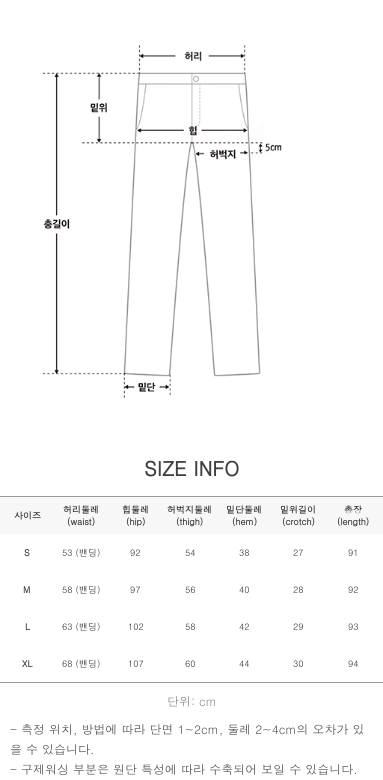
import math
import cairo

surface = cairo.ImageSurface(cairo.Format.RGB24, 383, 780)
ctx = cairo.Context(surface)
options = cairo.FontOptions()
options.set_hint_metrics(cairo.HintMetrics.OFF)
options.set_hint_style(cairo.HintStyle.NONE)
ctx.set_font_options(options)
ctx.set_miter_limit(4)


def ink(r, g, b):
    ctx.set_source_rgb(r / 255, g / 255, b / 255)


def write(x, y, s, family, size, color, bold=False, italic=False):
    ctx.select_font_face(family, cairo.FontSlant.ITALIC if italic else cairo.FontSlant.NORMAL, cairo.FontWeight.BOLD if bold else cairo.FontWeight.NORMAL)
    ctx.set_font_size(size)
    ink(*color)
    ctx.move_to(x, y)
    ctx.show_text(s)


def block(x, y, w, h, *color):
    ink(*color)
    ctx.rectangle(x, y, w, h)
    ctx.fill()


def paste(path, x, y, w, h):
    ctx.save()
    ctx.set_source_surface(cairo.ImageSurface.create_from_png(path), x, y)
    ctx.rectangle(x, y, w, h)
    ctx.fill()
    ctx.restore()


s1 = dict(family="Dotum", size=20, color=(62, 62, 62), bold=True)
s2 = dict(family="Dotum", size=9, color=(51, 51, 51), bold=True)
s3 = dict(family="Dotum", size=9, color=(51, 51, 51))
s4 = dict(family="Dotum", size=12, color=(136, 136, 136))
s5 = dict(family="Dotum", size=12, color=(85, 85, 85))

ink(255, 255, 255)
ctx.paint()
paste("pic1.png", 42, 45, 240, 353)
write(144, 476, "SIZE INFO", **s1)
block(0, 496, 383, 1, 153, 153, 153)
block(0, 682, 383, 1, 153, 153, 153)
block(0, 497, 383, 37, 247, 247, 247)
write(14, 519, "사이즈", **s2)
write(63, 513, "허리둘레", **s2)
write(67, 525, "(waist)", **s2)
write(122, 513, "힙둘레", **s2)
write(126, 525, "(hip)", **s2)
write(167, 513, "허벅지둘레", **s2)
write(176, 525, "(thigh)", **s2)
write(226, 513, "밑단둘레", **s2)
write(232, 525, "(hem)", **s2)
write(280, 513, "밑위길이", **s2)
write(282, 525, "(crotch)", **s2)
write(344, 513, "총장", **s2)
write(337, 525, "(length)", **s2)
write(24, 556, "S", **s2)
write(62, 556, "53 (밴딩)", **s3)
write(130, 556, "92", **s3)
write(185, 556, "54", **s3)
write(239, 556, "38", **s3)
write(293, 556, "27", **s3)
write(348, 556, "91", **s3)
write(23, 593, "M", **s2)
write(62, 593, "58 (밴딩)", **s3)
write(130, 593, "97", **s3)
write(185, 593, "56", **s3)
write(239, 593, "40", **s3)
write(293, 593, "28", **s3)
write(348, 593, "92", **s3)
write(25, 630, "L", **s2)
write(62, 630, "63 (밴딩)", **s3)
write(128, 630, "102", **s3)
write(185, 630, "58", **s3)
write(239, 630, "42", **s3)
write(293, 630, "29", **s3)
write(348, 630, "93", **s3)
write(22, 667, "XL", **s2)
write(62, 667, "68 (밴딩)", **s3)
write(128, 667, "107", **s3)
write(185, 667, "60", **s3)
write(239, 667, "44", **s3)
write(293, 667, "30", **s3)
write(348, 667, "94", **s3)
write(167, 706, "단위: cm", **s4)
write(10, 734, "- 측정 위치, 방법에 따라 단면 1~2cm, 둘레 2~4cm의 오차가 있", **s5)
write(10, 754, "을 수 있습니다.", **s5)
write(10, 774, "- 구제워싱 부분은 원단 특성에 따라 수축되어 보일 수 있습니다.", **s5)
surface.write_to_png("screenshot.png")
